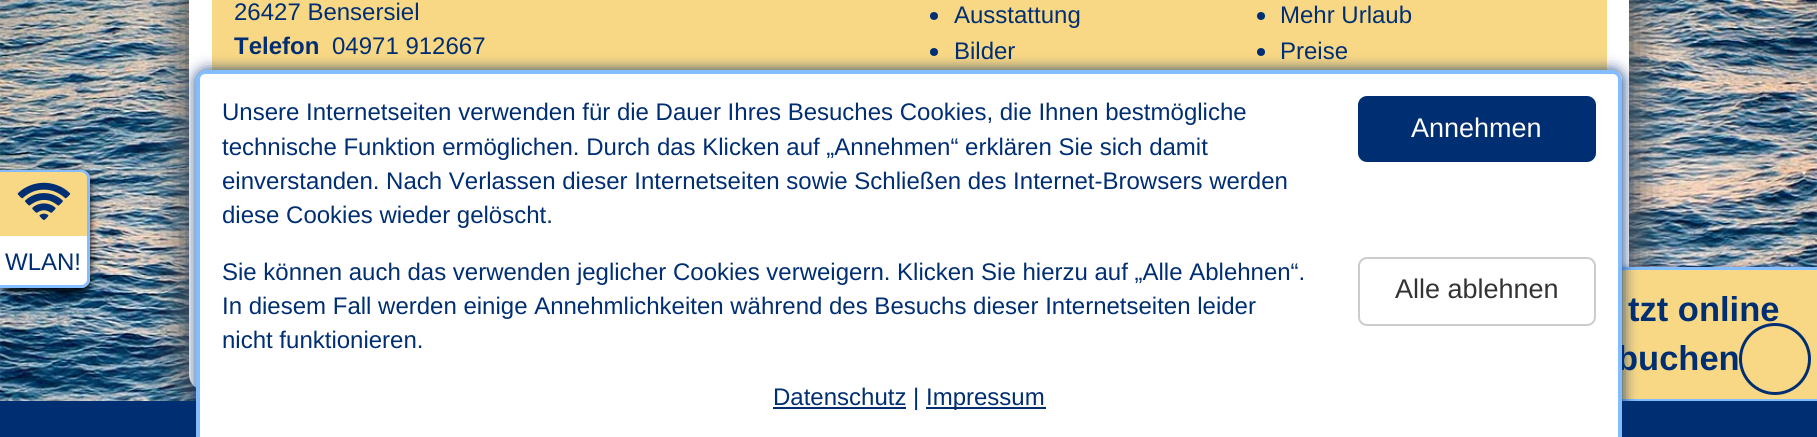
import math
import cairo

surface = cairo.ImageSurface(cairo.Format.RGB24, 1817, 437)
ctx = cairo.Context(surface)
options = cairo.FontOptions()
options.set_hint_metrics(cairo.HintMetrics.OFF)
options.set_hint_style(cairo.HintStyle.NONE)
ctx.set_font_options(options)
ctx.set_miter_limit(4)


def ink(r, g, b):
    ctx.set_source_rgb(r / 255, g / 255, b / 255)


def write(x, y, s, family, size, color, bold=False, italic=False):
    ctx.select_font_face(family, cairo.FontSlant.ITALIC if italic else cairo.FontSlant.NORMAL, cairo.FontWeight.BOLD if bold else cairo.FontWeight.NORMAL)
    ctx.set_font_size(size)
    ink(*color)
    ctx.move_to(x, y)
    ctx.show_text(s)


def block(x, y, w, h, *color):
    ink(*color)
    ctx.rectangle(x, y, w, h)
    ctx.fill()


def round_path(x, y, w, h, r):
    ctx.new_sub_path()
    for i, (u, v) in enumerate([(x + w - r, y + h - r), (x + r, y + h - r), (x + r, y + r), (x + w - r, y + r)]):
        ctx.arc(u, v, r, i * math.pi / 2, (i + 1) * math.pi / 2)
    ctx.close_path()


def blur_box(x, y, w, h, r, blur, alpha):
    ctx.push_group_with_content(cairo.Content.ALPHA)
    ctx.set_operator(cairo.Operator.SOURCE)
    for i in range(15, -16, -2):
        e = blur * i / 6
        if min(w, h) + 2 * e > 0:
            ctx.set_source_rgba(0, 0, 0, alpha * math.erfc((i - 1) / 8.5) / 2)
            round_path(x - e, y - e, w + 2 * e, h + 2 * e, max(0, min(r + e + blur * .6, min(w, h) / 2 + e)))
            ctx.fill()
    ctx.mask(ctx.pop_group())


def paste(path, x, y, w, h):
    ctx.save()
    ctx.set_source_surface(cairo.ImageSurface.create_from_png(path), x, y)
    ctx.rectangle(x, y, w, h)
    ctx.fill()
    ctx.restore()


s1 = dict(family="Liberation Sans", size=24, color=(0, 46, 114))
s2 = dict(family="Liberation Sans", size=24, color=(0, 46, 114), bold=True)
s3 = dict(family="Liberation Sans", size=34.5, color=(0, 46, 114), bold=True)
s4 = dict(family="Liberation Sans", size=27, color=(255, 255, 255))
s5 = dict(family="Liberation Sans", size=27, color=(51, 51, 51))

ink(255, 255, 255)
ctx.paint()
paste("pic1.png", 0, 0, 1817, 401)
ink(85, 85, 85)
blur_box(182, -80, 1455, 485, 23, 19, 1)
round_path(200.5, -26.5, 1417, 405, 3.5)
ink(255, 255, 255)
ctx.set_line_width(23)
ctx.stroke()
block(212, 0, 1395, 70, 249, 216, 133)
write(234, 20, "26427 Bensersiel", **s1)
write(234, 54, "Telefon", **s2)
write(332, 54, "04971 912667", **s1)
ctx.new_path()
ctx.arc(934, 16, 4, 0, 2 * math.pi)
ctx.fill()
write(954, 23, "Ausstattung", **s1)
ctx.new_path()
ctx.arc(934, 52, 4, 0, 2 * math.pi)
ctx.fill()
write(954, 59, "Bilder", **s1)
ctx.new_path()
ctx.arc(1261, 16, 4, 0, 2 * math.pi)
ctx.fill()
write(1280, 23, "Mehr Urlaub", **s1)
ctx.new_path()
ctx.arc(1261, 52, 4, 0, 2 * math.pi)
ctx.fill()
write(1280, 59, "Preise", **s1)
ink(0, 0, 0)
blur_box(0, 173, 90, 118, 9, 4, 1)
ink(249, 216, 133)
ctx.new_path()
ctx.move_to(0, 170)
ctx.line_to(81, 170)
ctx.curve_to(86, 170, 90, 174, 90, 179)
ctx.line_to(90, 279)
ctx.curve_to(90, 284, 86, 288, 81, 288)
ctx.line_to(0, 288)
ctx.close_path()
ctx.fill()
ink(132, 189, 255)
ctx.set_fill_rule(cairo.FillRule.EVEN_ODD)
ctx.new_path()
ctx.move_to(0, 170)
ctx.line_to(81, 170)
ctx.curve_to(86, 170, 90, 174, 90, 178)
ctx.line_to(90, 279)
ctx.curve_to(90, 284, 86, 288, 81, 288)
ctx.line_to(0, 288)
ctx.close_path()
ctx.move_to(0, 172)
ctx.line_to(81, 172)
ctx.curve_to(84, 172, 87, 175, 87, 178)
ctx.line_to(87, 279)
ctx.curve_to(87, 282, 84, 285, 81, 285)
ctx.line_to(0, 285)
ctx.close_path()
ctx.fill()
paste("pic2.png", 17, 182, 54, 39)
ink(255, 255, 255)
ctx.new_path()
ctx.move_to(0, 236)
ctx.line_to(87, 236)
ctx.line_to(87, 279)
ctx.curve_to(87, 282.5, 84.5, 285, 81, 285)
ctx.line_to(0, 285)
ctx.close_path()
ctx.fill()
write(5, 270, "WLAN!", **s1)
ink(0, 46, 114)
blur_box(1548, 270, 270, 135, 9, 4, 1)
ink(132, 189, 255)
ctx.new_path()
ctx.move_to(1557, 267)
ctx.line_to(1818, 267)
ctx.line_to(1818, 402)
ctx.line_to(1557, 402)
ctx.curve_to(1552, 402, 1548, 398, 1548, 393)
ctx.line_to(1548, 276)
ctx.curve_to(1548, 271, 1552, 267, 1557, 267)
ctx.close_path()
ctx.move_to(1557, 270)
ctx.line_to(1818, 270)
ctx.line_to(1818, 399)
ctx.line_to(1557, 399)
ctx.curve_to(1554, 399, 1551, 396, 1551, 393)
ctx.line_to(1551, 276)
ctx.curve_to(1551, 273, 1554, 270, 1557, 270)
ctx.close_path()
ctx.fill()
block(1622, 270, 195, 129, 249, 216, 133)
block(0, 401, 196, 36, 0, 46, 114)
block(1622, 401, 195, 36, 0, 46, 114)
ink(0, 46, 114)
blur_box(197, 71, 1425, 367, 9, 7.5, 1)
write(1617, 370, "buchen", **s3)
ink(255, 255, 255)
ctx.new_path()
ctx.move_to(206, 71)
ctx.line_to(1613, 71)
ctx.curve_to(1618, 71, 1622, 75, 1622, 80)
ctx.line_to(1622, 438)
ctx.line_to(197, 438)
ctx.line_to(197, 80)
ctx.curve_to(197, 75, 201, 71, 206, 71)
ctx.close_path()
ctx.fill()
ink(132, 189, 255)
ctx.new_path()
ctx.move_to(206, 70)
ctx.line_to(1612, 70)
ctx.curve_to(1617, 70, 1622, 75, 1622, 80)
ctx.line_to(1622, 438)
ctx.line_to(196, 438)
ctx.line_to(196, 80)
ctx.curve_to(196, 75, 201, 70, 206, 70)
ctx.close_path()
ctx.move_to(206, 74)
ctx.line_to(1612, 74)
ctx.curve_to(1616, 74, 1618, 76, 1618, 80)
ctx.line_to(1618, 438)
ctx.line_to(200, 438)
ctx.line_to(200, 80)
ctx.curve_to(200, 76, 202, 74, 206, 74)
ctx.close_path()
ctx.fill()
write(222, 120, "Unsere Internetseiten verwenden für die Dauer Ihres Besuches Cookies, die Ihnen bestmögliche", **s1)
write(222, 155, "technische Funktion ermöglichen. Durch das Klicken auf „Annehmen“ erklären Sie sich damit", **s1)
write(222, 189, "einverstanden. Nach Verlassen dieser Internetseiten sowie Schließen des Internet-Browsers werden", **s1)
write(222, 223, "diese Cookies wieder gelöscht.", **s1)
round_path(1358, 96, 238, 66, 9)
ctx.fill()
write(1411, 137, "Annehmen", **s4)
write(222, 280, "Sie können auch das verwenden jeglicher Cookies verweigern. Klicken Sie hierzu auf „Alle Ablehnen“.", **s1)
write(222, 314, "In diesem Fall werden einige Annehmlichkeiten während des Besuchs dieser Internetseiten leider", **s1)
write(222, 348, "nicht funktionieren.", **s1)
round_path(1359, 258, 236, 67, 8)
ink(204, 204, 204)
ctx.set_line_width(2)
ctx.stroke()
write(1395, 298, "Alle ablehnen", **s5)
block(773, 407, 133, 2, 0, 46, 114)
write(773, 405, "Datenschutz |", **s1)
block(926, 407, 120, 2, 0, 46, 114)
write(926, 405, "Impressum", **s1)
write(1628, 321, "tzt online", **s3)
ctx.new_path()
ctx.arc(1775, 359, 34.5, 0, 2 * math.pi)
ctx.set_line_width(3)
ctx.stroke()
surface.write_to_png("screenshot.png")
